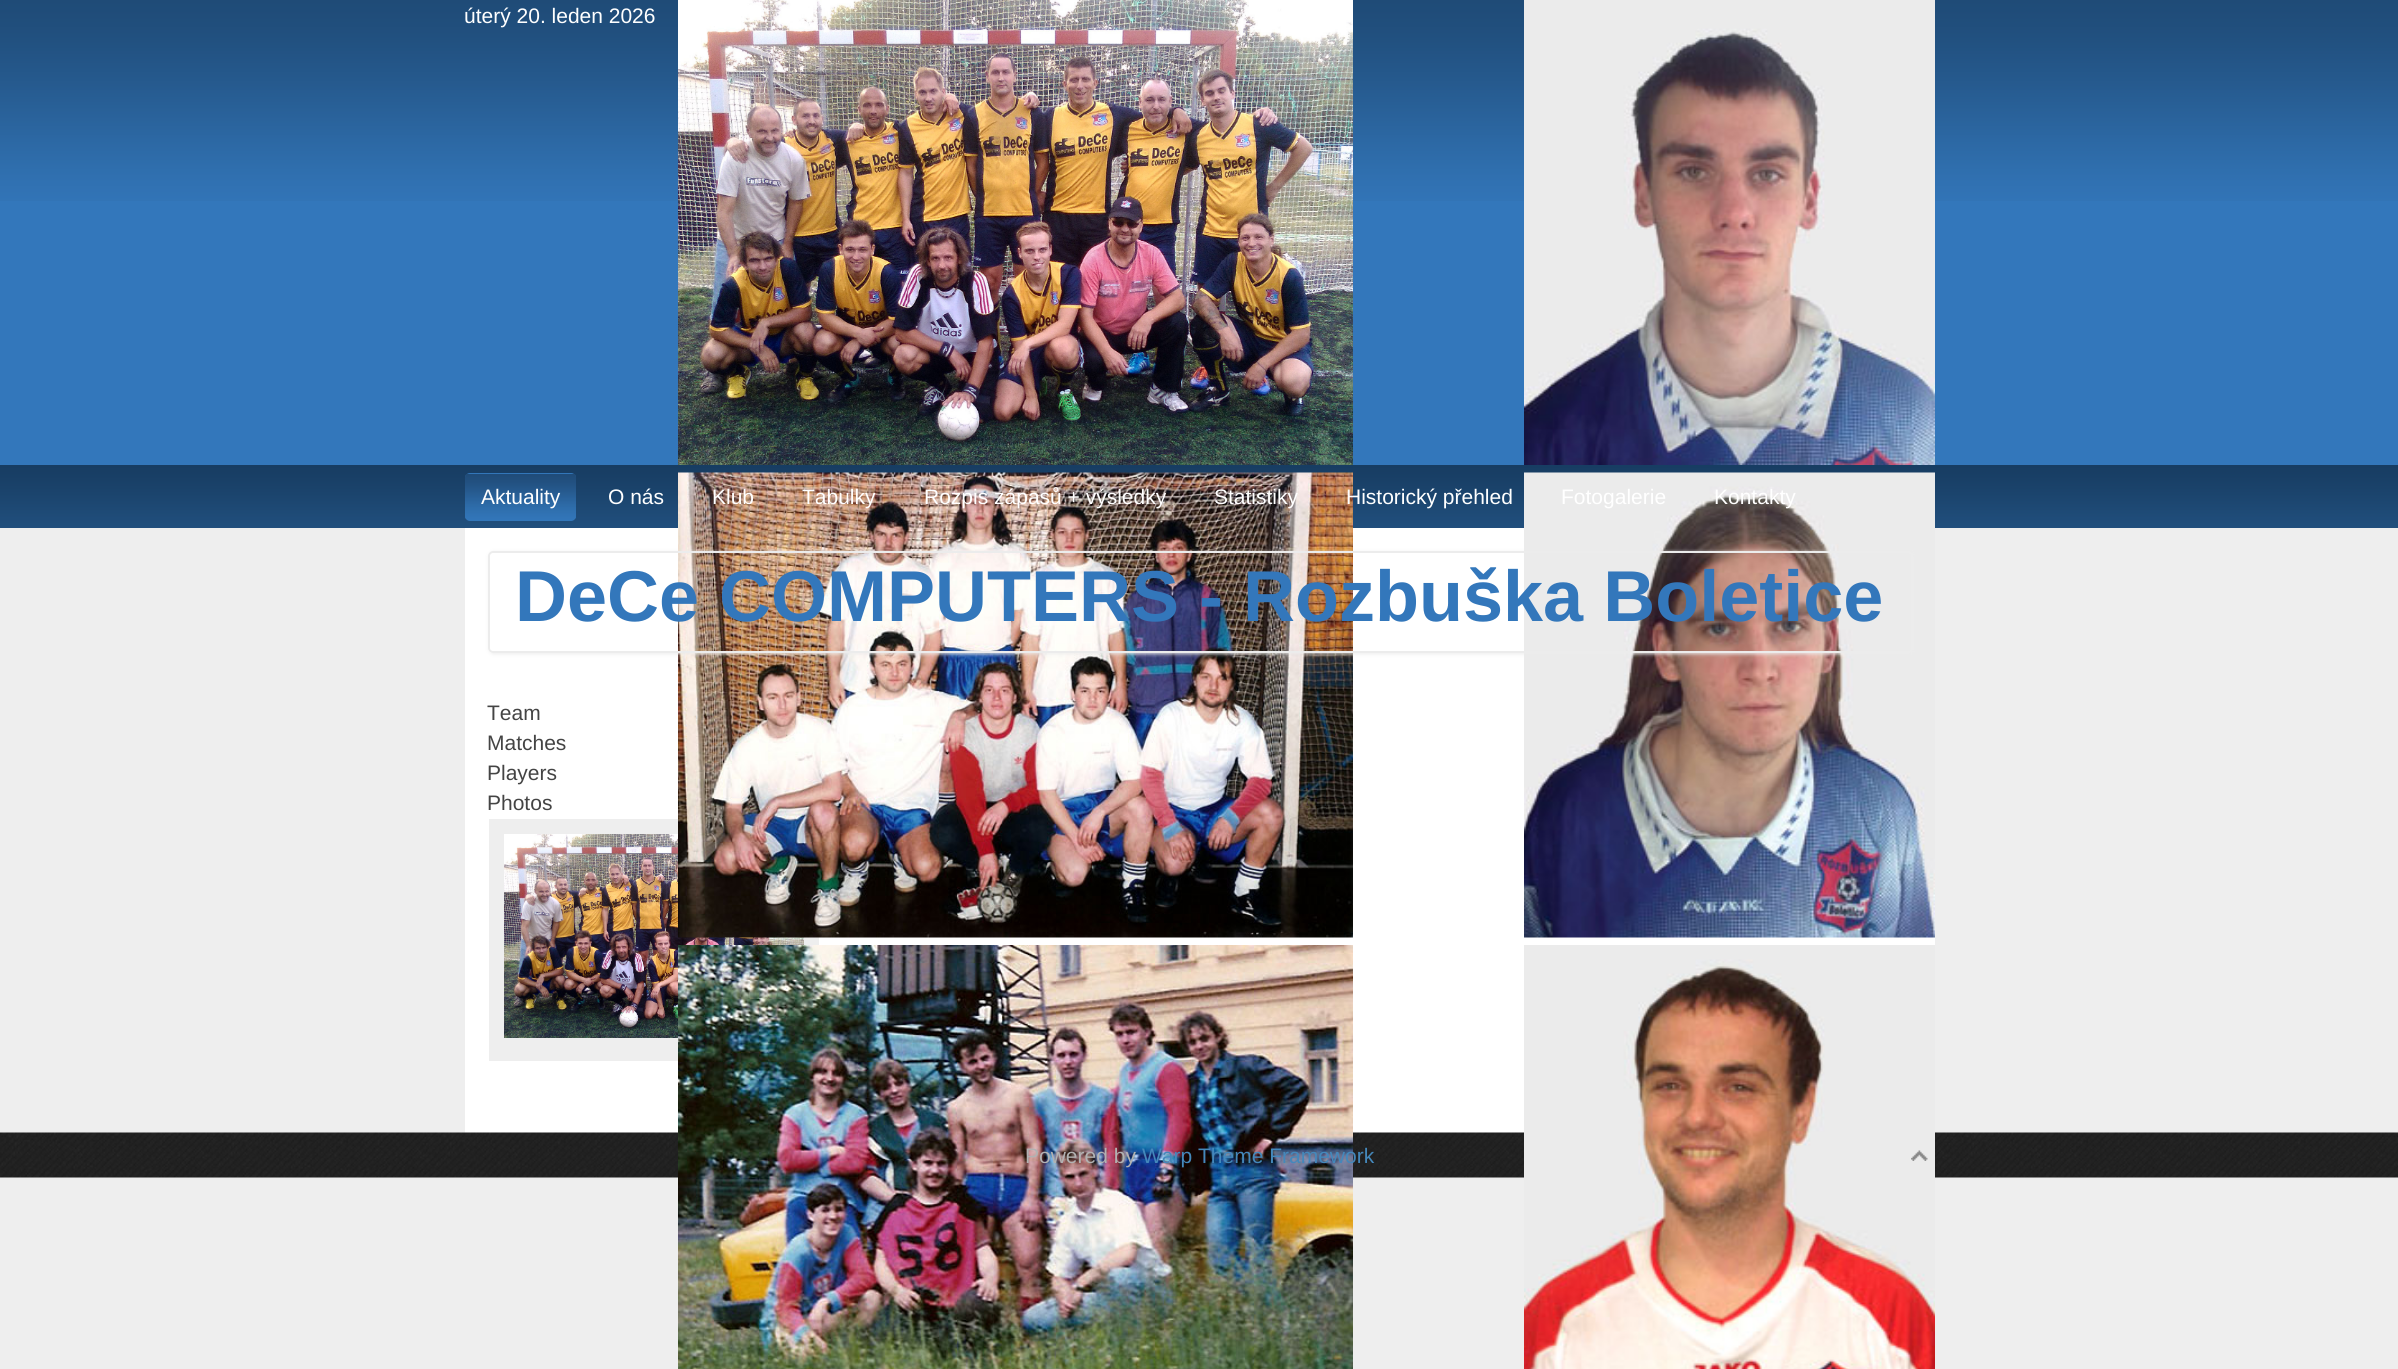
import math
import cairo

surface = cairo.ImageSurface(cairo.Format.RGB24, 2398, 1369)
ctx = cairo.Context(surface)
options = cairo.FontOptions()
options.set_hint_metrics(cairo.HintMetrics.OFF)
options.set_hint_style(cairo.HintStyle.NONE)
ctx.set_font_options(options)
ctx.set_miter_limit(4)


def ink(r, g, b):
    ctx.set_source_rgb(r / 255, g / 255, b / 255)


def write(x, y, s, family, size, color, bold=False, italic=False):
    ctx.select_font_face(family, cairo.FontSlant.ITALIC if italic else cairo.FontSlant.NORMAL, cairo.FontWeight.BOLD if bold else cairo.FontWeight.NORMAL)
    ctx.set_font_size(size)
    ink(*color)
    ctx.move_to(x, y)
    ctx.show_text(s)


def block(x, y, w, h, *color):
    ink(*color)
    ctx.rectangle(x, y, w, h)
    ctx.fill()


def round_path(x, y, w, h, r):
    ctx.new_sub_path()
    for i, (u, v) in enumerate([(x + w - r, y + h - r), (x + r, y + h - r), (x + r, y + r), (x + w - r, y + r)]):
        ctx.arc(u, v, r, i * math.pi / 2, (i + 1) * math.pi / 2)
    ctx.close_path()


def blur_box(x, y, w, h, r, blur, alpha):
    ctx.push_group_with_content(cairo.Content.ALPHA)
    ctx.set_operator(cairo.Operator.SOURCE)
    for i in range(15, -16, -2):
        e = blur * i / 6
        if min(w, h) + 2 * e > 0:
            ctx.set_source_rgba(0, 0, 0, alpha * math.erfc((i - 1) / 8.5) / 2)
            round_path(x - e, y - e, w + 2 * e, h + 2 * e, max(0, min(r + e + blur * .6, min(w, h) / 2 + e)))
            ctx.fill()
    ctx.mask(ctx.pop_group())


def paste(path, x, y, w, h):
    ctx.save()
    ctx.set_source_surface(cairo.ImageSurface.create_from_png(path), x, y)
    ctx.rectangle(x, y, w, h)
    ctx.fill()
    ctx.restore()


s1 = dict(family="Liberation Sans", size=21, color=(255, 255, 255))
s2 = dict(family="Liberation Sans", size=72, color=(51, 119, 187), bold=True)
s3 = dict(family="Liberation Sans", size=21, color=(68, 68, 68))
s4 = dict(family="Liberation Sans", size=21, color=(178, 178, 178))
s5 = dict(family="Liberation Sans", size=21, color=(68, 136, 187))

ink(238, 238, 238)
ctx.paint()
block(0, 201, 2398, 264, 51, 119, 187)
paste("pic1.png", 0, 0, 2398, 201)
write(464, 23, "úterý 20. leden 2026", **s1)
paste("pic2.png", 678, 0, 675, 465)
paste("pic8.png", 0, 465, 2398, 63)
block(465, 528, 1059, 147, 255, 255, 255)
block(465, 675, 1470, 458, 255, 255, 255)
block(489, 819, 330, 242, 238, 238, 238)
paste("pic10.png", 504, 834, 300, 204)
paste("pic3.png", 678, 472, 675, 466)
paste("pic11.png", 0, 1132, 2398, 46)
paste("pic4.png", 678, 945, 675, 424)
paste("pic5.png", 1524, 0, 411, 465)
paste("pic6.png", 1524, 472, 411, 466)
paste("pic7.png", 1524, 945, 411, 424)
ink(50, 118, 185)
round_path(465, 473, 111, 48, 5)
ctx.fill()
paste("pic9.png", 465, 474, 111, 45)
write(481, 504, "Aktuality", **s1)
write(608, 504, "O nás", **s1)
write(712, 504, "Klub", **s1)
write(802, 504, "Tabulky", **s1)
write(924, 504, "Rozpis zápasů + výsledky", **s1)
write(1214, 504, "Statistiky", **s1)
write(1346, 504, "Historický přehled", **s1)
write(1561, 504, "Fotogalerie", **s1)
write(1714, 504, "Kontakty", **s1)
ctx.save()
ctx.set_fill_rule(cairo.FillRule.EVEN_ODD)
ctx.new_path()
ctx.move_to(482, 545)
ctx.line_to(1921, 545)
ctx.line_to(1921, 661)
ctx.line_to(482, 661)
ctx.close_path()
ctx.move_to(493, 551)
ctx.line_to(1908, 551)
ctx.curve_to(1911, 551, 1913, 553, 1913, 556)
ctx.line_to(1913, 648)
ctx.curve_to(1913, 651, 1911, 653, 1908, 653)
ctx.line_to(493, 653)
ctx.curve_to(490, 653, 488, 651, 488, 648)
ctx.line_to(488, 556)
ctx.curve_to(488, 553, 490, 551, 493, 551)
ctx.close_path()
ctx.clip()
ink(236, 236, 236)
blur_box(489, 552, 1425, 102, 5, 2, 1)
ctx.restore()
round_path(489, 552, 1423, 100, 4)
ink(236, 236, 236)
ctx.stroke()
write(515, 621, "DeCe COMPUTERS - Rozbuška Boletice", **s2)
write(487, 720, "Team", **s3)
write(487, 750, "Matches", **s3)
write(487, 780, "Players", **s3)
write(487, 810, "Photos", **s3)
write(1025, 1163, "Powered by", **s4)
write(1142, 1163, "Warp Theme Framework", **s5)
paste("pic12.png", 1911, 1150, 17, 11)
surface.write_to_png("screenshot.png")
